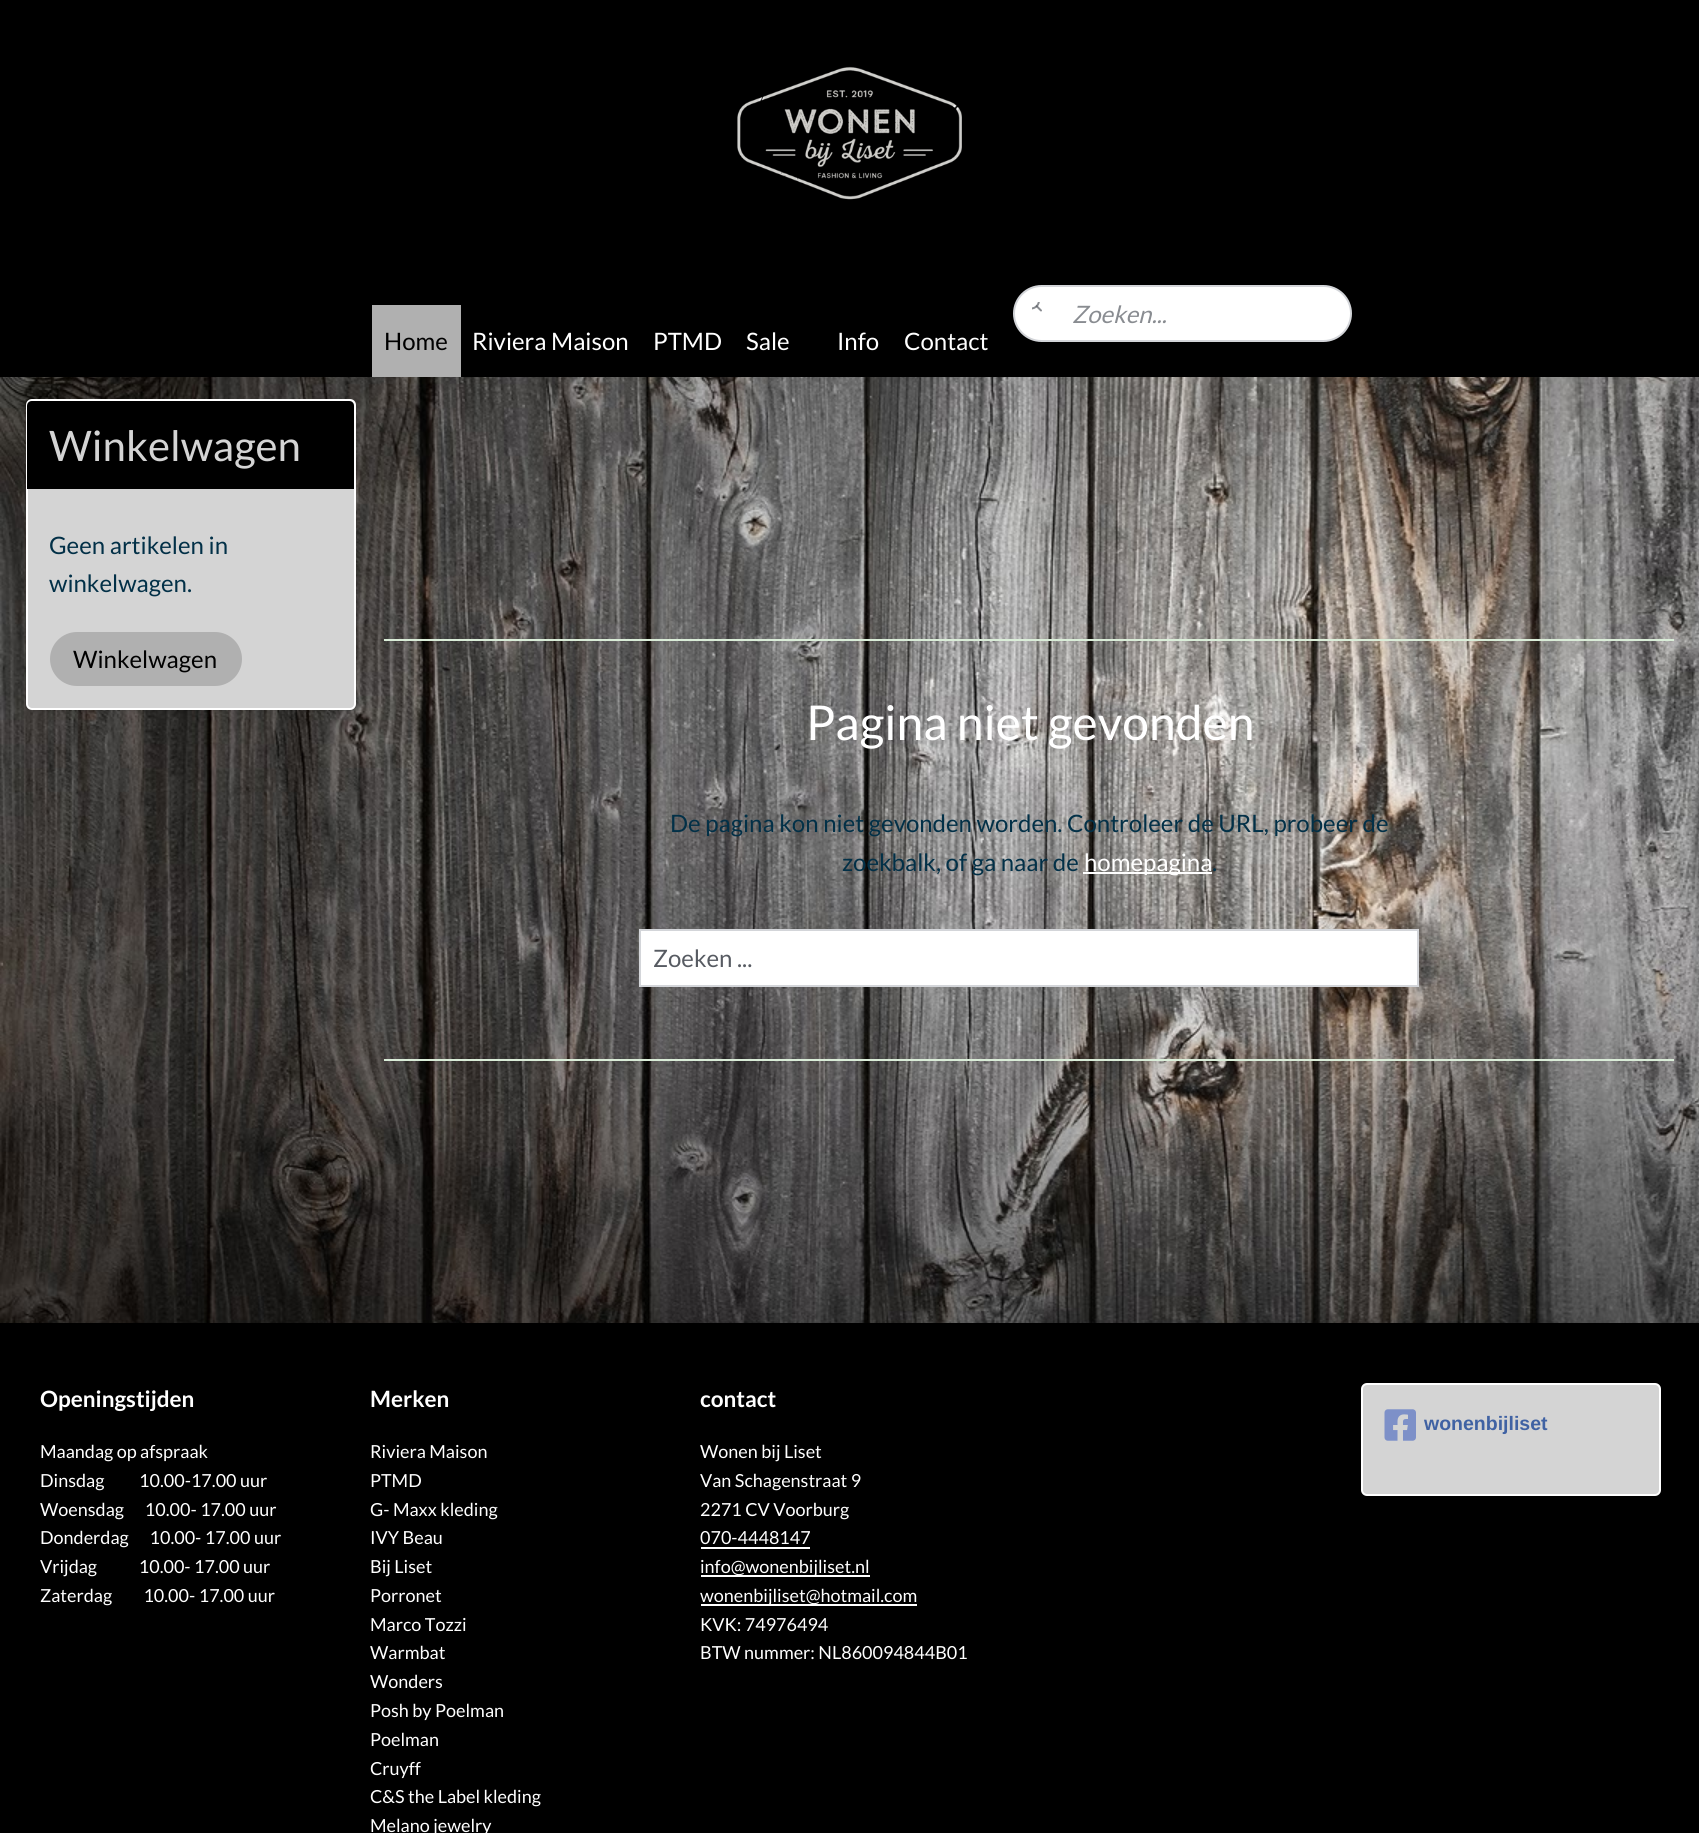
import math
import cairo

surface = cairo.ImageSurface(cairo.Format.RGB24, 1699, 1833)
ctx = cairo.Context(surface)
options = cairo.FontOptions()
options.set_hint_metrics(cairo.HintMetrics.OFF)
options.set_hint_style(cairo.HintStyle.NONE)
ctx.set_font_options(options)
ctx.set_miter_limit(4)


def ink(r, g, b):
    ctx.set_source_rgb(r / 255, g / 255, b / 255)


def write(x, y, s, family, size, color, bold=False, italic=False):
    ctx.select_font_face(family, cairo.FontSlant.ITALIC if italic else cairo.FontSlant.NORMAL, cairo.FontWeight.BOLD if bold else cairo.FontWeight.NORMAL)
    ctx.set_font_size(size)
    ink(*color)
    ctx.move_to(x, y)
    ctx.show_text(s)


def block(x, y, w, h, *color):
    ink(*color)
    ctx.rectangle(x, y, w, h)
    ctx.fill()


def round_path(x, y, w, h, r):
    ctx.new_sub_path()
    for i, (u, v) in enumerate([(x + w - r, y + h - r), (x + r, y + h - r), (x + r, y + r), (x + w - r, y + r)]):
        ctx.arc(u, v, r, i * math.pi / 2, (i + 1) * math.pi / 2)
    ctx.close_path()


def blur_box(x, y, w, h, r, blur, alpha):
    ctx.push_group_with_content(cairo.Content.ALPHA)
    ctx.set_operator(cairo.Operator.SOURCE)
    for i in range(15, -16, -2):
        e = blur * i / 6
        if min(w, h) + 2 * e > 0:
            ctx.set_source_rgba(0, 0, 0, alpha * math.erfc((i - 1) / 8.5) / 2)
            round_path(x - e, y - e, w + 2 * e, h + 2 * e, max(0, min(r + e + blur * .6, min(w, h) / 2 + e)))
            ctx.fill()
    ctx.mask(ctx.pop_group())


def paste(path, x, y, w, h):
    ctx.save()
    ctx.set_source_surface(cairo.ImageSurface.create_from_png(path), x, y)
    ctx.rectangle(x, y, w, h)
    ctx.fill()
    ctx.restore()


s1 = dict(family="Lato", size=24, color=(137, 140, 145), italic=True)
s2 = dict(family="Lato", size=24, color=(0, 0, 0))
s3 = dict(family="Lato", size=24, color=(255, 255, 255))
s4 = dict(family="Lato", size=42, color=(212, 212, 212))
s5 = dict(family="Lato", size=24, color=(2, 48, 71))
s6 = dict(family="Lato", size=48, color=(255, 255, 255))
s7 = dict(family="Lato", size=24, color=(87, 91, 98))
s8 = dict(family="Lato", size=22.5, color=(255, 255, 255), bold=True)
s9 = dict(family="Lato", size=18, color=(255, 255, 255))
s10 = dict(family="Liberation Sans", size=19.5, color=(64, 98, 163), bold=True)

ink(255, 255, 255)
ctx.paint()
block(0, 0, 1699, 377, 0, 0, 0)
paste("pic1.png", 737, 66, 225, 134)
ink(255, 255, 255)
round_path(1014, 286, 337, 55, 27.5)
ctx.fill_preserve()
ink(211, 213, 217)
ctx.stroke()
paste("pic2.png", 1032, 302, 10, 10)
write(1072, 323, "Zoeken...", **s1)
block(372, 305, 89, 72, 176, 176, 176)
write(384, 350, "Home", **s2)
write(472, 350, "Riviera Maison", **s3)
write(653, 350, "PTMD", **s3)
write(746, 350, "Sale", **s3)
write(837, 350, "Info", **s3)
write(904, 350, "Contact", **s3)
paste("pic3.png", 0, 377, 1699, 946)
ink(0, 0, 0)
blur_box(26, 401, 330, 310, 6, 1.5, 0.15)
ink(212, 212, 212)
round_path(27, 400, 328, 309, 5)
ctx.fill_preserve()
ink(255, 255, 255)
ctx.stroke()
ink(0, 0, 0)
ctx.new_path()
ctx.move_to(32, 401)
ctx.line_to(349, 401)
ctx.curve_to(352, 401, 354, 403, 354, 406)
ctx.line_to(354, 489)
ctx.line_to(27, 489)
ctx.line_to(27, 406)
ctx.curve_to(27, 403, 29, 401, 32, 401)
ctx.close_path()
ctx.fill()
write(49, 461, "Winkelwagen", **s4)
write(49, 554, "Geen artikelen in", **s5)
write(49, 592, "winkelwagen.", **s5)
ink(176, 176, 176)
round_path(50, 632, 192, 54, 27)
ctx.fill()
write(73, 668, "Winkelwagen", **s2)
block(384, 639, 1290, 2, 218, 237, 216)
block(384, 1059, 1290, 2, 218, 237, 216)
write(806, 740, "Pagina niet gevonden", **s6)
write(670, 832, "De pagina kon niet gevonden worden. Controleer de URL, probeer de", **s5)
write(842, 871, "zoekbalk, of ga naar de", **s5)
block(1083, 872, 129, 2, 255, 255, 255)
write(1084, 871, "homepagina", **s3)
write(1212, 871, ".", **s5)
ink(255, 255, 255)
ctx.rectangle(640, 930, 778, 56)
ctx.fill_preserve()
ink(211, 213, 217)
ctx.stroke()
write(653, 967, "Zoeken ...", **s7)
ink(0, 0, 0)
blur_box(0, 1322, 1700, 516, 0, 1.5, 0.05)
block(0, 1323, 1699, 510, 0, 0, 0)
write(40, 1407, "Openingstijden", **s8)
write(40, 1458, "Maandag op afspraak", **s9)
write(40, 1487, "Dinsdag          10.00-17.00 uur", **s9)
write(40, 1516, "Woensdag      10.00- 17.00 uur", **s9)
write(40, 1544, "Donderdag      10.00- 17.00 uur", **s9)
write(40, 1573, "Vrijdag            10.00- 17.00 uur", **s9)
write(40, 1602, "Zaterdag         10.00- 17.00 uur", **s9)
write(370, 1407, "Merken", **s8)
write(370, 1458, "Riviera Maison", **s9)
write(370, 1487, "PTMD", **s9)
write(370, 1516, "G- Maxx kleding", **s9)
write(370, 1544, "IVY Beau", **s9)
write(370, 1573, "Bij Liset", **s9)
write(370, 1602, "Porronet", **s9)
write(370, 1631, "Marco Tozzi", **s9)
write(370, 1659, "Warmbat", **s9)
write(370, 1688, "Wonders", **s9)
write(370, 1717, "Posh by Poelman", **s9)
write(370, 1746, "Poelman", **s9)
write(370, 1775, "Cruyff", **s9)
write(370, 1803, "C&S the Label kleding", **s9)
write(370, 1832, "Melano jewelry", **s9)
write(700, 1407, "contact", **s8)
write(700, 1458, "Wonen bij Liset", **s9)
write(700, 1487, "Van Schagenstraat 9", **s9)
write(700, 1516, "2271 CV Voorburg", **s9)
write(700, 1544, "070-4448147", **s9)
block(701, 1547, 109, 2, 255, 255, 255)
block(701, 1575, 169, 2, 255, 255, 255)
write(700, 1573, "info@wonenbijliset.nl", **s9)
block(701, 1604, 216, 2, 255, 255, 255)
write(700, 1602, "wonenbijliset@hotmail.com", **s9)
write(700, 1631, "KVK: 74976494", **s9)
write(700, 1659, "BTW nummer: NL860094844B01", **s9)
ink(212, 212, 212)
round_path(1362, 1384, 298, 111, 5)
ctx.fill_preserve()
ink(255, 255, 255)
ctx.stroke()
paste("pic4.png", 1384, 1409, 32, 32)
write(1424, 1430, "wonenbijliset", **s10)
surface.write_to_png("screenshot.png")
